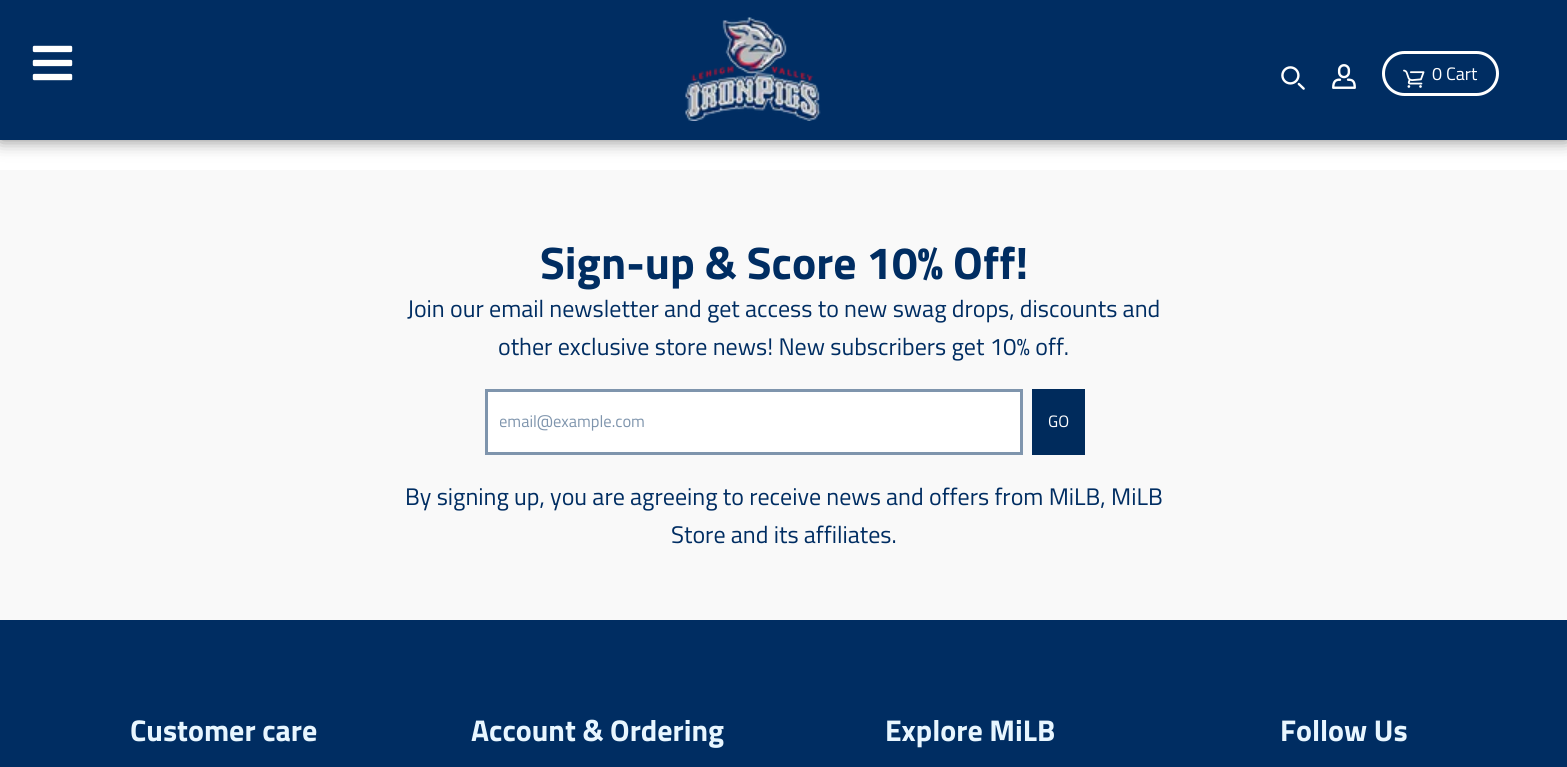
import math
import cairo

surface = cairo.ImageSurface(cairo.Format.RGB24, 1567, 767)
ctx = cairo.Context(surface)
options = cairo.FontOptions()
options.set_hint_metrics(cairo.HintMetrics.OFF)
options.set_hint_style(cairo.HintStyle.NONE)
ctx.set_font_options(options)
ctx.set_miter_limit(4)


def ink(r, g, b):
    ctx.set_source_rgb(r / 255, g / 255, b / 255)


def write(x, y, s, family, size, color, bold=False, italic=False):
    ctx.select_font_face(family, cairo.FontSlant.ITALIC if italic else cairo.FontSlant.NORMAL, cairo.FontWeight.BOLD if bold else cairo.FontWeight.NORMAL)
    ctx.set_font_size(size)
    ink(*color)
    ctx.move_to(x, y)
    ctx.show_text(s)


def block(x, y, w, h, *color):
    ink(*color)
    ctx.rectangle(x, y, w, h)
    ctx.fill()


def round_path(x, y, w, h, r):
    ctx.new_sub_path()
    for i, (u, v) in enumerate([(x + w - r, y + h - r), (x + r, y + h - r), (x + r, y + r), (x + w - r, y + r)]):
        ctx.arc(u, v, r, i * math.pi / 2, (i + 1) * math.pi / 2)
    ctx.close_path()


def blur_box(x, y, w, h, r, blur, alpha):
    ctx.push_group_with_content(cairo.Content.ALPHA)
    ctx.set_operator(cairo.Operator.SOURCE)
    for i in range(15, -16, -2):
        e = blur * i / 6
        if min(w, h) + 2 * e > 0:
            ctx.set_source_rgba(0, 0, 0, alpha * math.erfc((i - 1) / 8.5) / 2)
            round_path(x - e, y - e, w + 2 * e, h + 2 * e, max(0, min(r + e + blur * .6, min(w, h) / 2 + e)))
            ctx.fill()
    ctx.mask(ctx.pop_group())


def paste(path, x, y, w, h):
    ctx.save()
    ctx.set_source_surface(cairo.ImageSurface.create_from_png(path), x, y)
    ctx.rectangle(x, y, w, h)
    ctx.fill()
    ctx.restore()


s1 = dict(family="Titillium Web", size=18, color=(255, 255, 255))
s2 = dict(family="Titillium Web", size=45.6, color=(0, 45, 98), bold=True)
s3 = dict(family="Titillium Web", size=24, color=(0, 45, 98))
s4 = dict(family="Titillium Web", size=16.5, color=(127, 149, 173))
s5 = dict(family="Titillium Web", size=16.5, color=(255, 255, 255))
s6 = dict(family="Titillium Web", size=30, color=(232, 246, 255), bold=True)

ink(255, 255, 255)
ctx.paint()
ink(0, 0, 0)
blur_box(0, 0, 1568, 140, 0, 9, 0.5)
block(0, 0, 1567, 140, 0, 45, 98)
paste("pic1.png", 32, 45, 41, 36)
paste("pic2.png", 685, 17, 136, 104)
paste("pic3.png", 1281, 66, 24, 24)
paste("pic4.png", 1332, 64, 24, 25)
round_path(1383.5, 52.5, 114, 42, 21)
ink(255, 255, 255)
ctx.set_line_width(3)
ctx.stroke()
paste("pic5.png", 1403, 69, 22, 19)
write(1432, 80, "0 Cart", **s1)
block(0, 170, 1567, 450, 249, 249, 249)
write(540, 279, "Sign-up & Score 10% Off!", **s2)
write(407, 317, "Join our email newsletter and get access to new swag drops, discounts and", **s3)
write(498, 355, "other exclusive store news! New subscribers get 10% off.", **s3)
ink(255, 255, 255)
ctx.rectangle(486.5, 390.5, 535, 63)
ctx.fill_preserve()
ink(127, 149, 173)
ctx.stroke()
ctx.save()
ctx.rectangle(500, 408, 508, 24)
ctx.clip()
write(499, 427, "email@example.com", **s4)
ctx.restore()
block(1032, 389, 53, 66, 0, 43, 92)
write(1048, 427, "GO", **s5)
write(405, 505, "By signing up, you are agreeing to receive news and offers from MiLB, MiLB", **s3)
write(671, 543, "Store and its affiliates.", **s3)
block(0, 620, 1567, 147, 0, 45, 98)
write(130, 741, "Customer care", **s6)
write(471, 741, "Account & Ordering", **s6)
write(885, 741, "Explore MiLB", **s6)
write(1280, 741, "Follow Us", **s6)
surface.write_to_png("screenshot.png")
